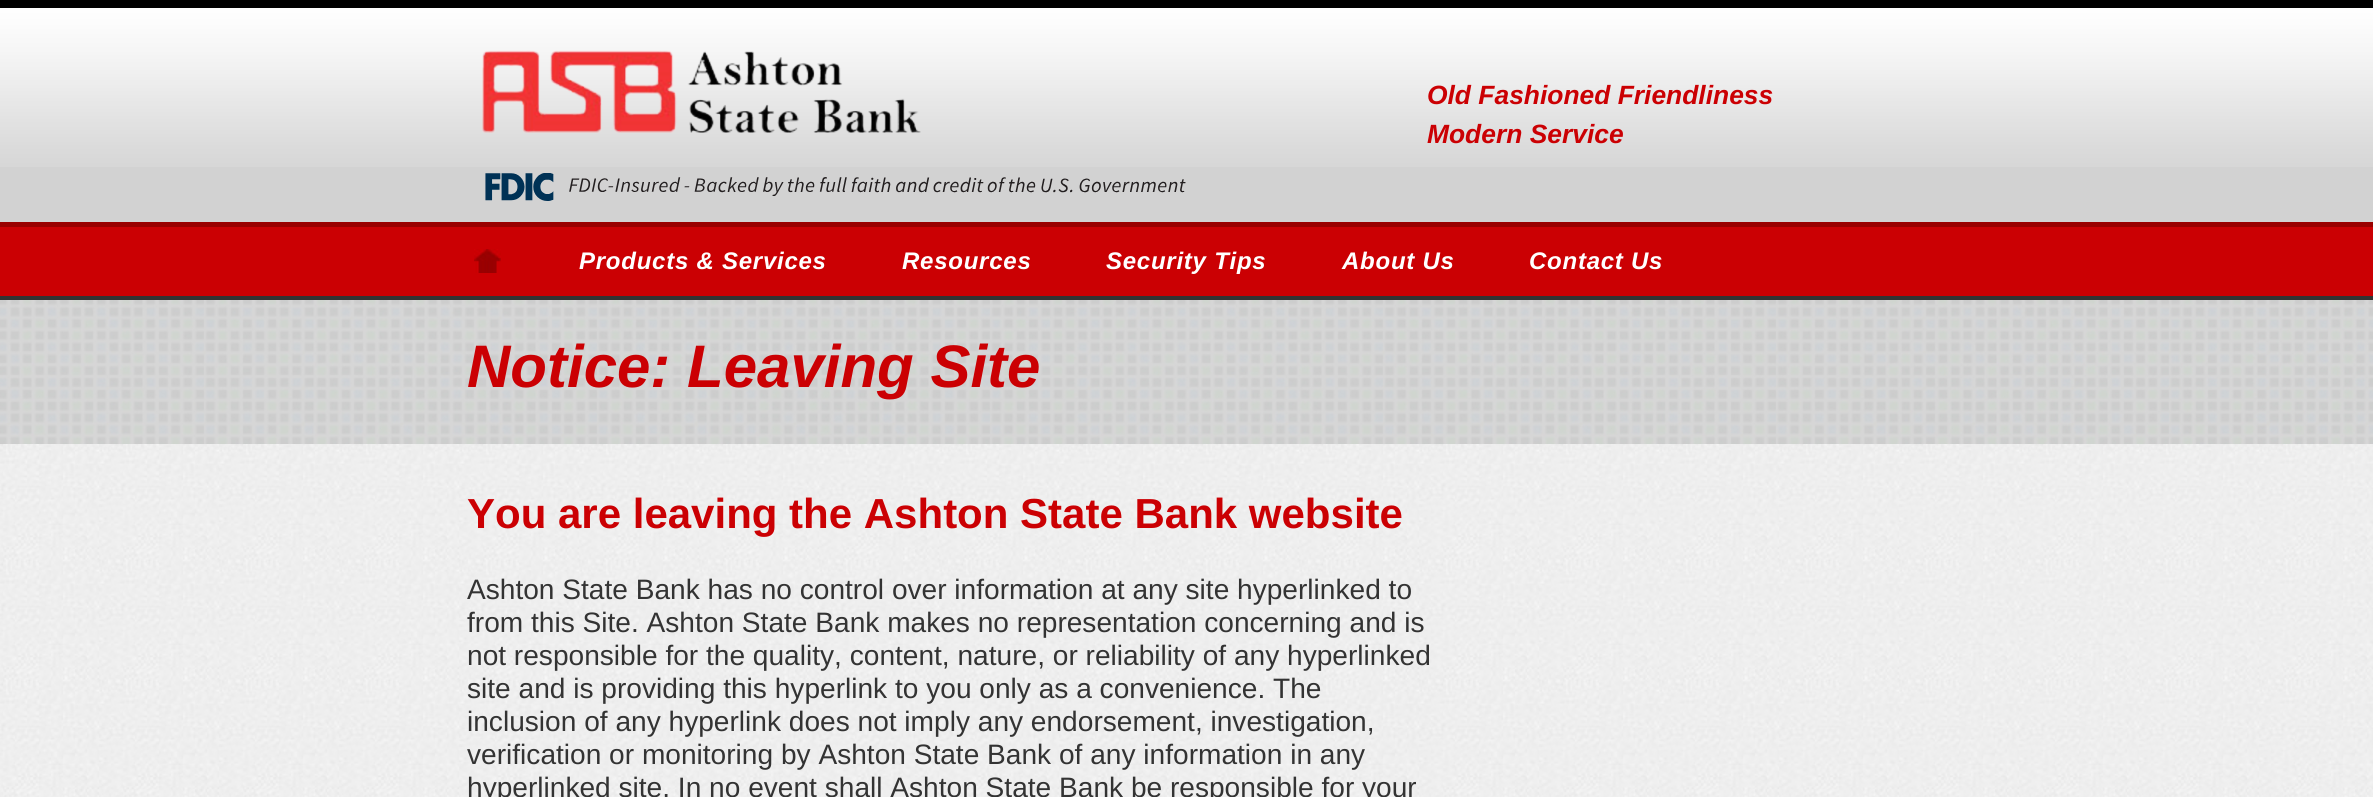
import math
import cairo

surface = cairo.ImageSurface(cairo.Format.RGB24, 2373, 797)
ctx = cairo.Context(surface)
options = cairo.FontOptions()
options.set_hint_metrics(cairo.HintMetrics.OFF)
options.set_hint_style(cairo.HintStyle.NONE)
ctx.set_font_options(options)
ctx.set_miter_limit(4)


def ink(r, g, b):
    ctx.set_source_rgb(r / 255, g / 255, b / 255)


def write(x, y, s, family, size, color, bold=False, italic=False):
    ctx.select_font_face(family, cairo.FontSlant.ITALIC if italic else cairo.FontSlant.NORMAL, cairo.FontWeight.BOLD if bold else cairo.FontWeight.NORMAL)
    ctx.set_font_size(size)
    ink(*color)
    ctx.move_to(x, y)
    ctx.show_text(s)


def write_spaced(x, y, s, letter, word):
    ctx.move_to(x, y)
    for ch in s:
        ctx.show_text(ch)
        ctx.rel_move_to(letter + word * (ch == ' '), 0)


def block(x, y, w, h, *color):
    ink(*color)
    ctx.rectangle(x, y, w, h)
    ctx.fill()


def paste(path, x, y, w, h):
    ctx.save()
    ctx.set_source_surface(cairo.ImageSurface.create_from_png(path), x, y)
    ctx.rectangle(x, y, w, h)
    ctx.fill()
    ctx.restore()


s1 = dict(family="Liberation Sans", size=26.4, color=(203, 0, 3), bold=True, italic=True)
s2 = dict(family="Liberation Sans", size=60, color=(203, 0, 3), bold=True, italic=True)
s3 = dict(family="Liberation Sans", size=42, color=(203, 0, 3), bold=True)
s4 = dict(family="Liberation Sans", size=28.1, color=(51, 51, 51))

ink(255, 255, 255)
ctx.paint()
paste("pic1.png", 0, 444, 2373, 353)
block(0, 167, 2373, 55, 210, 210, 210)
paste("pic2.png", 0, 8, 2373, 159)
block(0, 0, 2373, 8, 0, 0, 0)
paste("pic3.png", 482, 50, 439, 83)
paste("pic4.png", 485, 173, 701, 28)
write(1427, 104, "Old Fashioned Friendliness", **s1)
write(1427, 143, "Modern Service", **s1)
block(0, 227, 2373, 69, 203, 0, 3)
block(0, 222, 2373, 5, 153, 0, 0)
block(0, 296, 2373, 4, 51, 51, 51)
paste("pic5.png", 474, 249, 27, 24)
ctx.set_font_size(24)
ink(255, 255, 255)
write_spaced(579, 269, "Products & Services", 0.75, 0)
write_spaced(902, 269, "Resources", 0.75, 0)
write_spaced(1106, 269, "Security Tips", 0.75, 0)
write_spaced(1342, 269, "About Us", 0.75, 0)
write_spaced(1529, 269, "Contact Us", 0.75, 0)
paste("pic6.png", 0, 300, 2373, 144)
write(467, 387, "Notice: Leaving Site", **s2)
write(467, 528, "You are leaving the Ashton State Bank website", **s3)
write(467, 599, "Ashton State Bank has no control over information at any site hyperlinked to", **s4)
write(467, 632, "from this Site. Ashton State Bank makes no representation concerning and is", **s4)
write(467, 665, "not responsible for the quality, content, nature, or reliability of any hyperlinked", **s4)
write(467, 698, "site and is providing this hyperlink to you only as a convenience. The", **s4)
write(467, 731, "inclusion of any hyperlink does not imply any endorsement, investigation,", **s4)
write(467, 764, "verification or monitoring by Ashton State Bank of any information in any", **s4)
write(467, 797, "hyperlinked site. In no event shall Ashton State Bank be responsible for your", **s4)
surface.write_to_png("screenshot.png")
